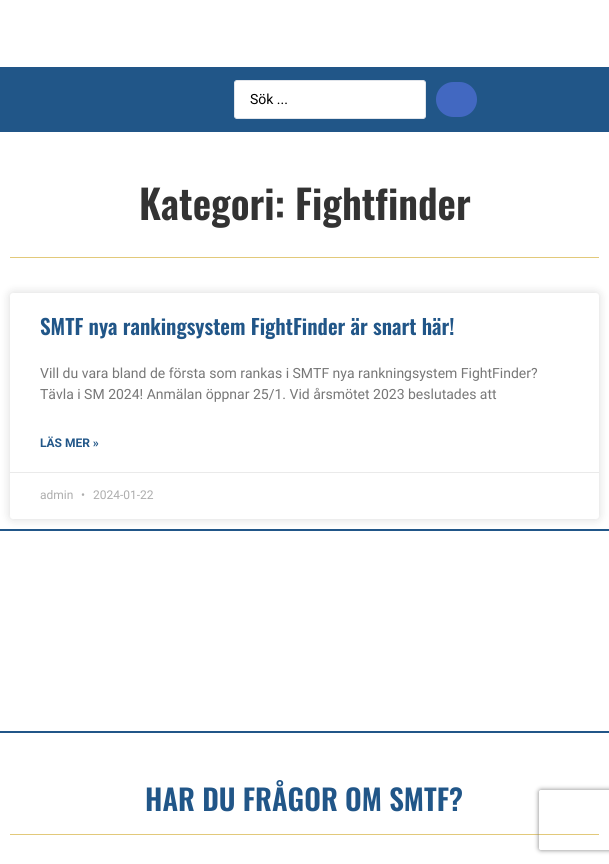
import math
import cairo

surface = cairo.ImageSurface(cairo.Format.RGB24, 609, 864)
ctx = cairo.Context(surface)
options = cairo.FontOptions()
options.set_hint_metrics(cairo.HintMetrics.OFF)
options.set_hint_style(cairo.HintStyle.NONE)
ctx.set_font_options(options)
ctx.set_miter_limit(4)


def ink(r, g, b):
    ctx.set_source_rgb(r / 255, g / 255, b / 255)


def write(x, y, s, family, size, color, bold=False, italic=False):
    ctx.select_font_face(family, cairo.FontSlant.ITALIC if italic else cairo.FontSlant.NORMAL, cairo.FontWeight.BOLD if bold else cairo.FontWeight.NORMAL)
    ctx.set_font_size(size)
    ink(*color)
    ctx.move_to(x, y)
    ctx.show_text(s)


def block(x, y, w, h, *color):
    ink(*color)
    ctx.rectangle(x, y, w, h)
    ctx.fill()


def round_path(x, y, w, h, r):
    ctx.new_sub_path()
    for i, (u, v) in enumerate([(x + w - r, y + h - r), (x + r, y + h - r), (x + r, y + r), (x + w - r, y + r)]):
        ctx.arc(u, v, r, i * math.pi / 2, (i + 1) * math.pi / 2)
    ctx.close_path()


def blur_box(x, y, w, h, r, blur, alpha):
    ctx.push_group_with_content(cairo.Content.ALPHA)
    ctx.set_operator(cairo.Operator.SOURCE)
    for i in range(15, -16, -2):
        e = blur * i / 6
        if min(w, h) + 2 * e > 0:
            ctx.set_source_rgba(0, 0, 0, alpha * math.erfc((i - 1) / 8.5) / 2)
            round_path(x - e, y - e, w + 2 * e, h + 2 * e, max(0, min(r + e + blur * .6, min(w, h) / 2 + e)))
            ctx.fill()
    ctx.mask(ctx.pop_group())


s1 = dict(family="Roboto", size=14, color=(0, 0, 0))
s2 = dict(family="Oswald SemiBold", size=40, color=(51, 51, 51))
s3 = dict(family="Oswald SemiBold", size=21, color=(33, 86, 136))
s4 = dict(family="Roboto", size=14, color=(119, 119, 119))
s5 = dict(family="Roboto", size=12, color=(33, 86, 136), bold=True)
s6 = dict(family="Roboto", size=12, color=(173, 173, 173))
s7 = dict(family="Oswald SemiBold", size=29, color=(33, 86, 136))

ink(255, 255, 255)
ctx.paint()
block(0, 67, 609, 65, 33, 86, 136)
ink(255, 255, 255)
round_path(234.5, 80.5, 191, 38, 2.5)
ctx.fill_preserve()
ink(225, 229, 235)
ctx.set_line_width(1)
ctx.stroke()
write(250, 104, "Sök ...", **s1)
ink(66, 104, 193)
round_path(436, 82, 41, 35, 17.5)
ctx.fill()
write(139, 220, "Kategori: Fightfinder", **s2)
block(10, 257, 589, 1, 226, 201, 122)
ink(0, 0, 0)
blur_box(10, 293, 589, 226, 3, 5, 0.15)
ink(255, 255, 255)
round_path(10, 293, 589, 226, 3)
ctx.fill()
write(40, 335, "SMTF nya rankingsystem FightFinder är snart här!", **s3)
write(40, 378, "Vill du vara bland de första som rankas i SMTF nya rankningsystem FightFinder?", **s4)
write(40, 399, "Tävla i SM 2024! Anmälan öppnar 25/1. Vid årsmötet 2023 beslutades att", **s4)
write(40, 447, "LÄS MER »", **s5)
block(10, 472, 589, 1, 234, 234, 234)
write(40, 499, "admin", **s6)
write(81, 499, "•", **s6)
write(93, 499, "2024-01-22", **s6)
block(0, 529, 609, 2, 33, 86, 136)
block(0, 731, 609, 2, 33, 86, 136)
write(145, 811, "HAR DU FRÅGOR OM SMTF?", **s7)
block(10, 834, 589, 1, 226, 201, 122)
ctx.save()
ctx.set_fill_rule(cairo.FillRule.EVEN_ODD)
ctx.new_path()
ctx.move_to(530, 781)
ctx.line_to(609, 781)
ctx.line_to(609, 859)
ctx.line_to(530, 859)
ctx.close_path()
ctx.move_to(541, 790)
ctx.line_to(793, 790)
ctx.curve_to(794, 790, 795, 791, 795, 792)
ctx.line_to(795, 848)
ctx.curve_to(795, 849, 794, 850, 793, 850)
ctx.line_to(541, 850)
ctx.curve_to(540, 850, 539, 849, 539, 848)
ctx.line_to(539, 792)
ctx.curve_to(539, 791, 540, 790, 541, 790)
ctx.close_path()
ctx.clip()
ink(128, 128, 128)
blur_box(539, 790, 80, 60, 2, 2.5, 1)
ctx.restore()
surface.write_to_png("screenshot.png")
